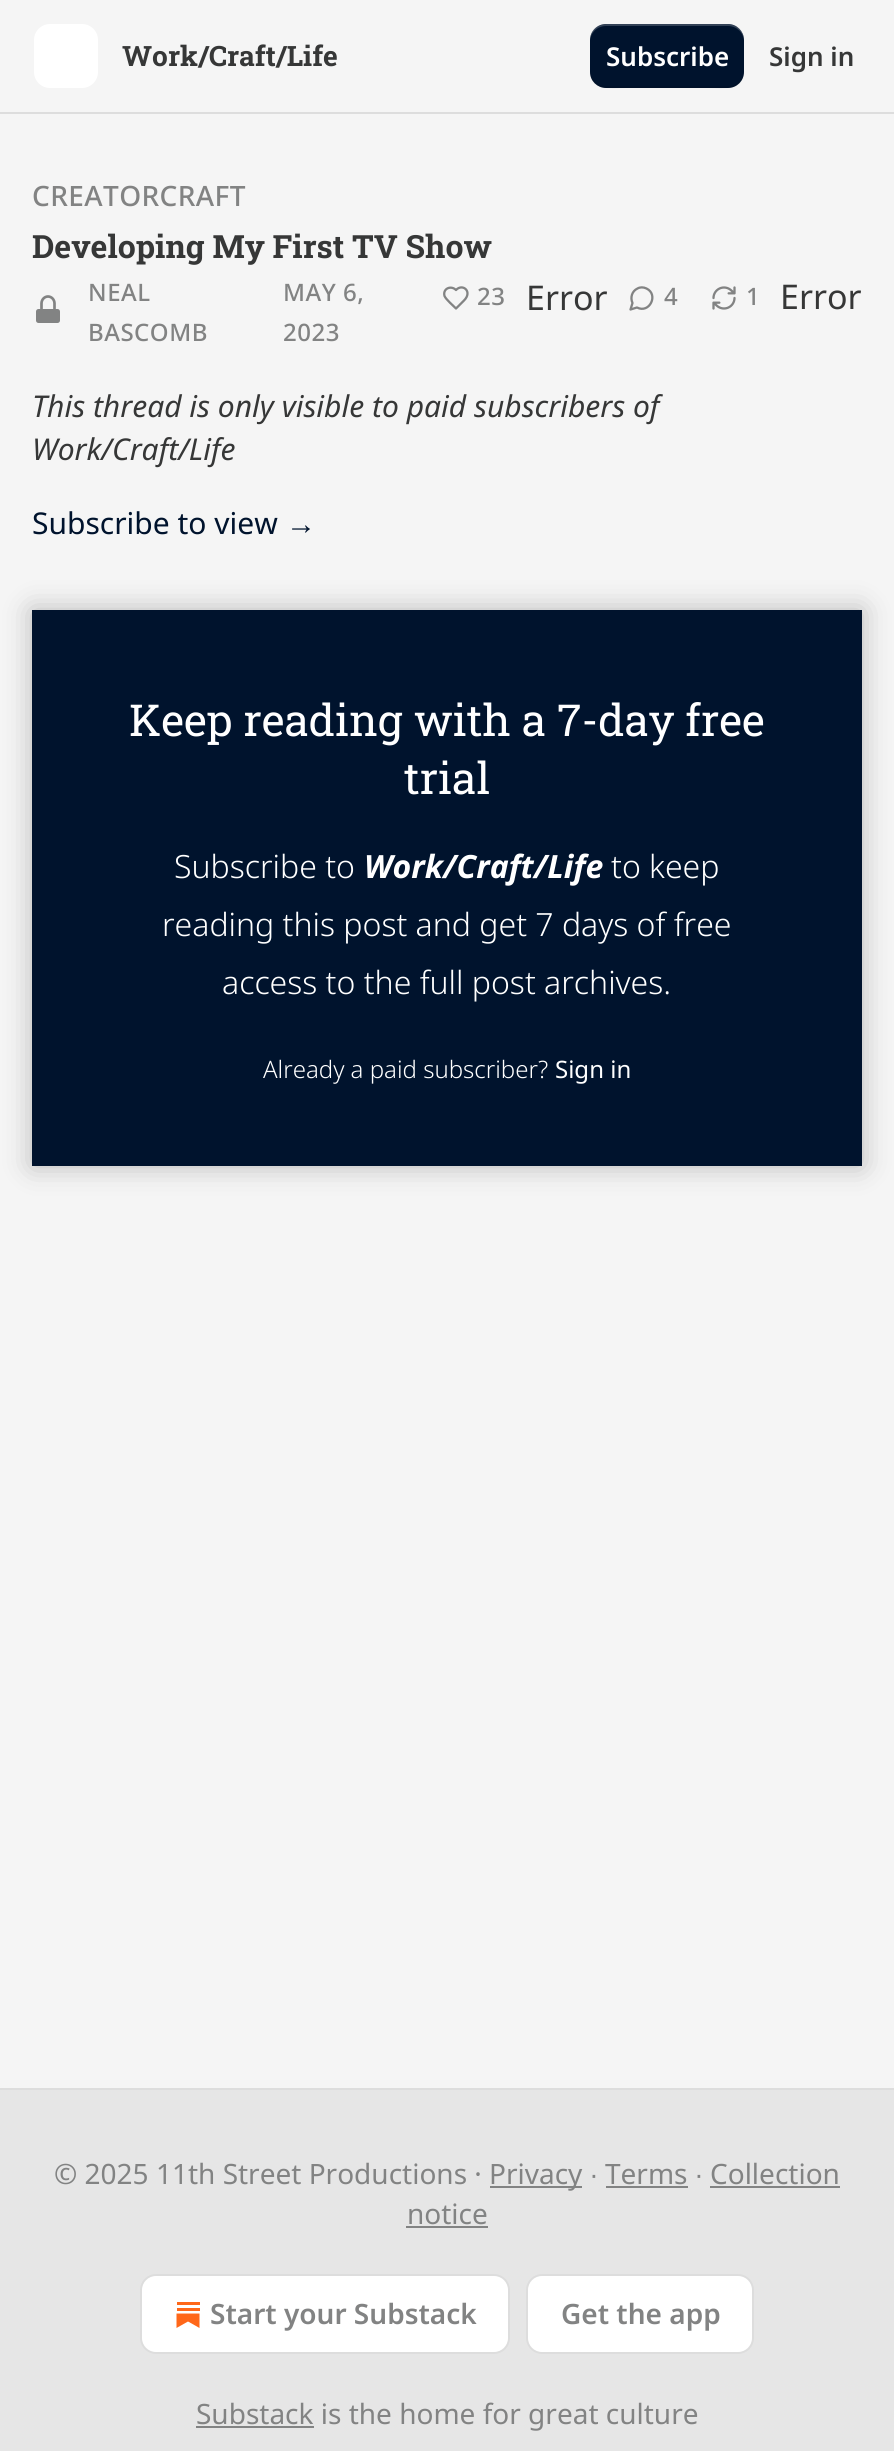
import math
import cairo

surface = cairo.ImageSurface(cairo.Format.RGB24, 894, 2451)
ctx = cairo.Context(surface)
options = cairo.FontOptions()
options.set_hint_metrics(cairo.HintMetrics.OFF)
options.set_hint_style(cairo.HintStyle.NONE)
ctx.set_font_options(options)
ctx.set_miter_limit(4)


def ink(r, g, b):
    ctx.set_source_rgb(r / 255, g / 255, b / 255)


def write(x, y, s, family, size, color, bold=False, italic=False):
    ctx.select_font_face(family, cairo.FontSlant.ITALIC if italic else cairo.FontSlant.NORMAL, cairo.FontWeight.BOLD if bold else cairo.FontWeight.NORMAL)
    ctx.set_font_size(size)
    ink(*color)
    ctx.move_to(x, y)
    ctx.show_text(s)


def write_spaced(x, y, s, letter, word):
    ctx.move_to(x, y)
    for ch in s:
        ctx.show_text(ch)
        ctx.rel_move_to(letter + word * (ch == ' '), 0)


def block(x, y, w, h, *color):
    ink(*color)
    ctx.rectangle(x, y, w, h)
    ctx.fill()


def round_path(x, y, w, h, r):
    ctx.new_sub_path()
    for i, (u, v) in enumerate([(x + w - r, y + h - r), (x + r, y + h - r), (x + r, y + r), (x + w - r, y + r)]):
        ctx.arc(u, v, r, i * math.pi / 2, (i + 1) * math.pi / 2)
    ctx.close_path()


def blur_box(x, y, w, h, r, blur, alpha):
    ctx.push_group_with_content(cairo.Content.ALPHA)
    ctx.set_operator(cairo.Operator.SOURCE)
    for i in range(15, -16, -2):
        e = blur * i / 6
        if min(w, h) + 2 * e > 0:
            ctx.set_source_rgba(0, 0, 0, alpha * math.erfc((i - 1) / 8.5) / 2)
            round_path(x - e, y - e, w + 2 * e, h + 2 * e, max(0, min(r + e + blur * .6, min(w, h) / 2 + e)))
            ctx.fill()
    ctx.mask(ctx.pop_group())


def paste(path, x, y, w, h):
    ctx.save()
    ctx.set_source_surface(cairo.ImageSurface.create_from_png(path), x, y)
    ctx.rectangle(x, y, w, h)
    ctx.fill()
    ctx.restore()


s1 = dict(family="Roboto Slab", size=28, color=(54, 55, 55), bold=True)
s2 = dict(family="Noto Sans SemiBold", size=26, color=(255, 255, 255))
s3 = dict(family="Noto Sans SemiBold", size=26, color=(54, 55, 55))
s4 = dict(family="Roboto Slab", size=32, color=(54, 55, 55), bold=True)
s5 = dict(family="Noto Sans", size=34, color=(54, 55, 55))
s6 = dict(family="Noto Sans", size=30, color=(54, 55, 55), italic=True)
s7 = dict(family="Noto Sans", size=30, color=(0, 19, 45))
s8 = dict(family="Liberation Sans", size=30, color=(0, 19, 45))
s9 = dict(family="Roboto Slab", size=44, color=(255, 255, 255))
s10 = dict(family="Noto Sans Light", size=32, color=(255, 255, 255))
s11 = dict(family="Noto Sans", size=32, color=(255, 255, 255), bold=True, italic=True)
s12 = dict(family="Noto Sans Light", size=24, color=(255, 255, 255))
s13 = dict(family="Noto Sans", size=24, color=(255, 255, 255))
s14 = dict(family="Noto Sans", size=28, color=(130, 131, 131))
s15 = dict(family="Liberation Sans", size=28, color=(130, 131, 131))
s16 = dict(family="Noto Sans SemiBold", size=28, color=(130, 131, 131))

ink(245, 245, 245)
ctx.paint()
block(0, 112, 894, 2, 221, 221, 221)
ink(255, 255, 255)
round_path(34, 24, 64, 64, 16)
ctx.fill()
write(122, 66, "Work/Craft/Life", **s1)
ink(0, 19, 45)
round_path(590, 24, 154, 64, 16)
ctx.fill()
ctx.set_source_rgba(0, 0, 0, 0.1)
ctx.new_path()
ctx.move_to(590, 70)
ctx.curve_to(590, 92, 610, 88, 626, 88)
ctx.line_to(708, 88)
ctx.curve_to(724, 88, 744, 92, 744, 70)
ctx.curve_to(744, 79, 737, 86, 728, 86)
ctx.line_to(606, 86)
ctx.curve_to(597, 86, 590, 79, 590, 70)
ctx.close_path()
ctx.fill()
ctx.set_source_rgba(1, 1, 1, 0.2)
ctx.new_path()
ctx.move_to(606, 26)
ctx.line_to(728, 26)
ctx.curve_to(737, 26, 744, 33, 744, 42)
ctx.curve_to(744, 20, 724, 24, 708, 24)
ctx.line_to(626, 24)
ctx.curve_to(610, 24, 590, 20, 590, 42)
ctx.curve_to(590, 33, 597, 26, 606, 26)
ctx.close_path()
ctx.fill()
write(606, 66, "Subscribe", **s2)
write(769, 66, "Sign in", **s3)
ctx.select_font_face("Noto Sans Medium")
ctx.set_font_size(28)
ink(130, 131, 131)
write_spaced(32, 206, "CREATORCRAFT", 0.4, 0)
write(32, 258, "Developing My First TV Show", **s4)
ink(130, 131, 131)
round_path(36, 309, 24, 14, 2.5)
ctx.fill()
ctx.new_path()
ctx.move_to(41.5, 308.5)
ctx.line_to(41.5, 303.5)
ctx.curve_to(41.5, 299.5, 44.5, 296.5, 48, 296.5)
ctx.curve_to(51.5, 296.5, 54.5, 299.5, 54.5, 303.5)
ctx.line_to(54.5, 308.5)
ctx.set_line_width(2.7)
ctx.set_line_cap(cairo.LineCap.ROUND)
ctx.set_line_join(cairo.LineJoin.ROUND)
ctx.stroke()
ctx.select_font_face("Noto Sans Medium")
ctx.set_font_size(24)
write_spaced(88, 301, "NEAL", 0.5, 0)
write_spaced(88, 341, "BASCOMB", 0.5, 0)
write_spaced(283, 301, "MAY 6,", 0.5, 0)
write_spaced(283, 341, "2023", 0.5, 0)
ctx.new_path()
ctx.move_to(464, 300.5)
ctx.curve_to(473, 291.5, 462.5, 283, 456, 290)
ctx.curve_to(451, 285, 442.5, 288.5, 444.5, 296)
ctx.curve_to(446, 299.5, 453.5, 306, 456, 308.5)
ctx.close_path()
ctx.set_line_width(2.3)
ctx.stroke()
write_spaced(477, 305, "23", 0.5, 0)
write(526, 310, "Error", **s5)
ctx.new_path()
ctx.move_to(637, 307.5)
ctx.curve_to(649.5, 314, 659, 294.5, 646.5, 288.5)
ctx.curve_to(643.5, 287, 640, 287, 637.5, 288.5)
ctx.curve_to(632, 291, 630, 297.5, 632.5, 303)
ctx.line_to(630.5, 309.5)
ctx.close_path()
ink(130, 131, 131)
ctx.stroke()
ctx.select_font_face("Noto Sans Medium")
ctx.set_font_size(24)
write_spaced(664, 305, "4", 0.5, 0)
paste("pic1.png", 712, 286, 24, 24)
write_spaced(746, 305, "1", 0.5, 0)
write(780, 309, "Error", **s5)
write(32, 417, "This thread is only visible to paid subscribers of", **s6)
write(32, 460, "Work/Craft/Life", **s6)
write(32, 534, "Subscribe to view", **s7)
write(286, 534, "→", **s8)
block(32, 610, 830, 556, 0, 19, 45)
ctx.save()
ctx.set_fill_rule(cairo.FillRule.EVEN_ODD)
ctx.new_path()
ctx.move_to(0, 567)
ctx.line_to(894, 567)
ctx.line_to(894, 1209)
ctx.line_to(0, 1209)
ctx.close_path()
ctx.move_to(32, 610)
ctx.line_to(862, 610)
ctx.line_to(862, 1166)
ctx.line_to(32, 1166)
ctx.close_path()
ctx.clip()
ink(0, 0, 0)
blur_box(32, 610, 830, 556, 0, 14, 0.25)
ctx.restore()
write(129, 736, "Keep reading with a 7-day free", **s9)
write(404, 794, "trial", **s9)
write(174, 878, "Subscribe to", **s10)
write(364, 878, "Work/Craft/Life", **s11)
write(611, 878, "to keep", **s10)
write(162, 936, "reading this post and get 7 days of free", **s10)
write(222, 994, "access to the full post archives.", **s10)
write(263, 1078, "Already a paid subscriber?", **s12)
write(555, 1078, "Sign in", **s13)
block(0, 2090, 894, 361, 230, 230, 230)
block(0, 2088, 894, 2, 221, 221, 221)
write(54, 2184, "© 2025 11th Street Productions ·", **s14)
block(490, 2186, 92, 2, 130, 131, 131)
write(489, 2184, "Privacy", **s14)
write(590, 2184, "∙", **s15)
write(605, 2184, "Terms", **s14)
block(606, 2186, 82, 2, 130, 131, 131)
write(695, 2184, "∙", **s15)
write(710, 2184, "Collection", **s14)
block(710, 2186, 130, 2, 130, 131, 131)
write(407, 2224, "notice", **s14)
block(406, 2226, 82, 2, 130, 131, 131)
ink(255, 255, 255)
round_path(141, 2275, 368, 78, 15)
ctx.fill_preserve()
ink(221, 221, 221)
ctx.set_line_width(2)
ctx.set_line_cap(cairo.LineCap.BUTT)
ctx.set_line_join(cairo.LineJoin.MITER)
ctx.stroke()
block(177, 2308, 23, 3, 255, 103, 25)
ctx.new_path()
ctx.move_to(176.5, 2313.5)
ctx.line_to(176.5, 2328)
ctx.line_to(188, 2321.5)
ctx.line_to(199.5, 2328)
ctx.line_to(199.5, 2313.5)
ctx.close_path()
ctx.fill()
block(177, 2302, 23, 3, 255, 103, 25)
write(210, 2324, "Start your Substack", **s16)
ink(255, 255, 255)
round_path(527, 2275, 226, 78, 15)
ctx.fill_preserve()
ink(221, 221, 221)
ctx.stroke()
write(561, 2324, "Get the app", **s16)
block(196, 2426, 118, 2, 130, 131, 131)
write(196, 2424, "Substack is the home for great culture", **s14)
surface.write_to_png("screenshot.png")
